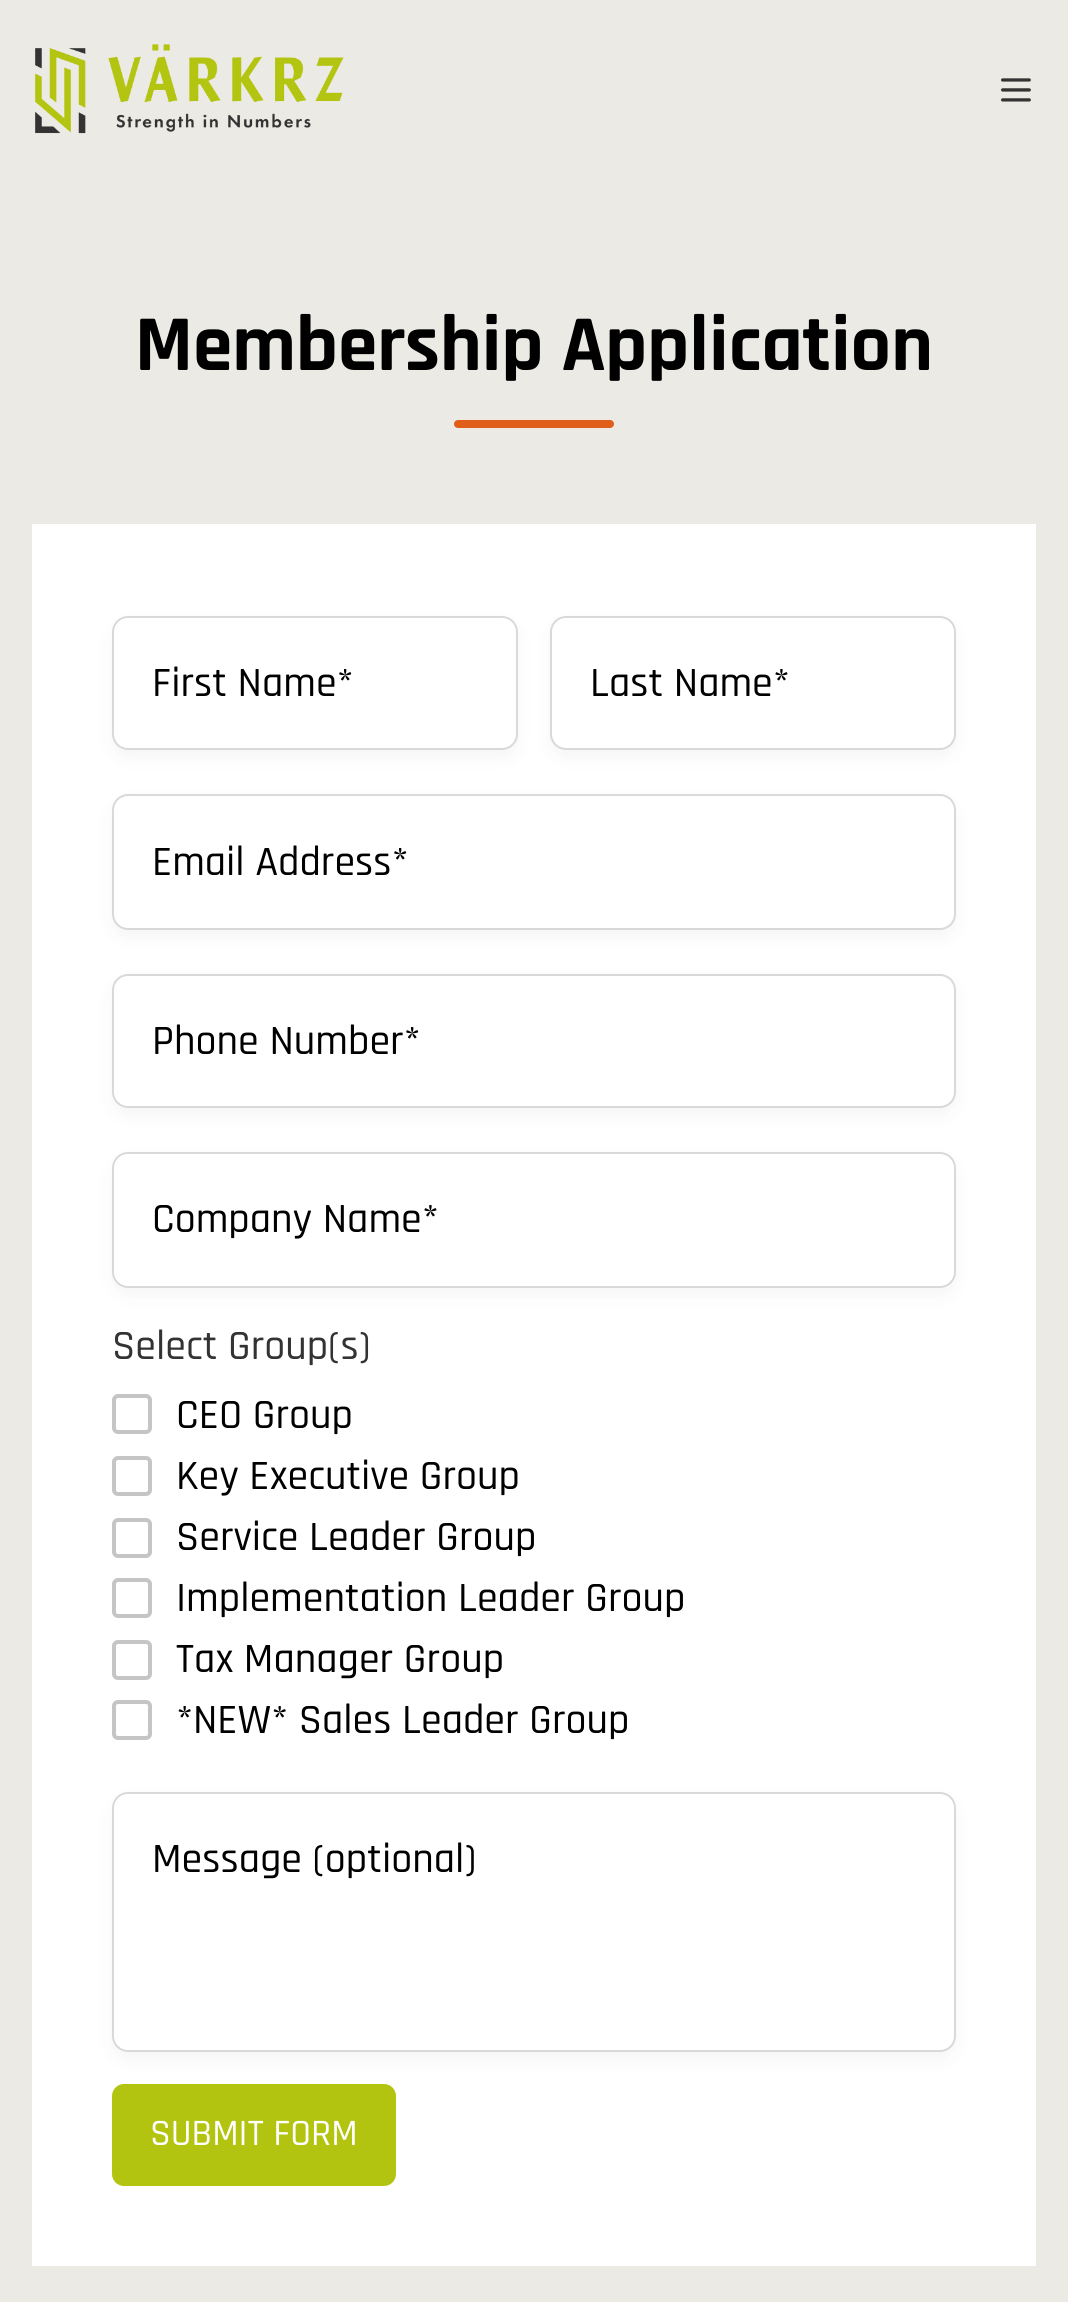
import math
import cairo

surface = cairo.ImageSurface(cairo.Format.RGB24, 1068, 2302)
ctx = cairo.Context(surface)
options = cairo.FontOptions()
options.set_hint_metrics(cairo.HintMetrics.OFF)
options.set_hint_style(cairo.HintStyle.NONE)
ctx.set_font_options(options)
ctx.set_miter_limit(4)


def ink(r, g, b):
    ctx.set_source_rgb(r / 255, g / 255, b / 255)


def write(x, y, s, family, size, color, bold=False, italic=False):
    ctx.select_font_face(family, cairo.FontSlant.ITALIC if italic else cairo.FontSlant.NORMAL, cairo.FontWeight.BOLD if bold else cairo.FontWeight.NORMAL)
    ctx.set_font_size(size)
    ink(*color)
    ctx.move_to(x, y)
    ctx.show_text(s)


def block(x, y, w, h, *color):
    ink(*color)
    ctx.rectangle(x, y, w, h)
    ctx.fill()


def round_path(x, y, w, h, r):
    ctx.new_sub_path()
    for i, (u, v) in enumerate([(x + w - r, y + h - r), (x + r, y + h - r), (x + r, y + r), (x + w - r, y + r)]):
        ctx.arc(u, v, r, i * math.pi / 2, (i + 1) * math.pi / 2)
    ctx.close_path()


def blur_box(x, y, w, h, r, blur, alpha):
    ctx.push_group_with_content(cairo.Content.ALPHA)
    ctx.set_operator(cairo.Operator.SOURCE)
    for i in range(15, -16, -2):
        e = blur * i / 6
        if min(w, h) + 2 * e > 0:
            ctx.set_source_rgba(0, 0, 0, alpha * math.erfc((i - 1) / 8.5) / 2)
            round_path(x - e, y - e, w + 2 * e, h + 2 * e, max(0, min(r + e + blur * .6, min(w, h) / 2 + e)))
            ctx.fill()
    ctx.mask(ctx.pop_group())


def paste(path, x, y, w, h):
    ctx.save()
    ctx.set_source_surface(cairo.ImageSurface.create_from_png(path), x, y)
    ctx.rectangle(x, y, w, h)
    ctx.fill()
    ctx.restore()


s1 = dict(family="Rajdhani", size=79.75, color=(0, 0, 0), bold=True)
s2 = dict(family="Rajdhani Medium", size=42, color=(0, 0, 0))
s3 = dict(family="Rajdhani Medium", size=42, color=(51, 51, 51))
s4 = dict(family="Rajdhani Medium", size=37.5, color=(255, 255, 255))

ink(236, 234, 228)
ctx.paint()
paste("pic1.png", 35, 44, 309, 90)
paste("pic2.png", 1001, 78, 30, 24)
write(135, 370, "Membership Application", **s1)
ink(223, 95, 24)
round_path(454, 420, 160, 8, 4)
ctx.fill()
block(32, 524, 1004, 1742, 255, 255, 255)
ink(51, 51, 51)
blur_box(112, 624, 406, 134, 16, 8, 0.05)
ink(255, 255, 255)
round_path(113, 617, 404, 132, 15)
ctx.fill_preserve()
ink(217, 217, 217)
ctx.stroke()
write(152, 696, "First Name*", **s2)
ink(51, 51, 51)
blur_box(550, 624, 406, 134, 16, 8, 0.05)
ink(255, 255, 255)
round_path(551, 617, 404, 132, 15)
ctx.fill_preserve()
ink(217, 217, 217)
ctx.stroke()
write(590, 696, "Last Name*", **s2)
ink(51, 51, 51)
blur_box(112, 802, 844, 136, 16, 8, 0.05)
ink(255, 255, 255)
round_path(113, 795, 842, 134, 15)
ctx.fill_preserve()
ink(217, 217, 217)
ctx.stroke()
write(152, 875, "Email Address*", **s2)
ink(51, 51, 51)
blur_box(112, 982, 844, 134, 16, 8, 0.05)
ink(255, 255, 255)
round_path(113, 975, 842, 132, 15)
ctx.fill_preserve()
ink(217, 217, 217)
ctx.stroke()
write(152, 1054, "Phone Number*", **s2)
ink(51, 51, 51)
blur_box(112, 1160, 844, 136, 16, 8, 0.05)
ink(255, 255, 255)
round_path(113, 1153, 842, 134, 15)
ctx.fill_preserve()
ink(217, 217, 217)
ctx.stroke()
write(152, 1232, "Company Name*", **s2)
write(112, 1359, "Select Group(s)", **s3)
round_path(114, 1396, 36, 36, 4)
ink(197, 197, 197)
ctx.set_line_width(4)
ctx.stroke()
write(176, 1428, "CEO Group", **s2)
round_path(114, 1458, 36, 36, 4)
ink(197, 197, 197)
ctx.stroke()
write(176, 1489, "Key Executive Group", **s2)
round_path(114, 1520, 36, 36, 4)
ink(197, 197, 197)
ctx.stroke()
write(176, 1550, "Service Leader Group", **s2)
round_path(114, 1580, 36, 36, 4)
ink(197, 197, 197)
ctx.stroke()
write(176, 1611, "Implementation Leader Group", **s2)
round_path(114, 1642, 36, 36, 4)
ink(197, 197, 197)
ctx.stroke()
write(176, 1672, "Tax Manager Group", **s2)
round_path(114, 1702, 36, 36, 4)
ink(197, 197, 197)
ctx.stroke()
write(176, 1733, "*NEW* Sales Leader Group", **s2)
ink(51, 51, 51)
blur_box(112, 1800, 844, 260, 16, 8, 0.05)
ink(255, 255, 255)
round_path(113, 1793, 842, 258, 15)
ctx.fill_preserve()
ink(217, 217, 217)
ctx.set_line_width(2)
ctx.stroke()
write(152, 1872, "Message (optional)", **s2)
ink(179, 196, 16)
round_path(112, 2084, 284, 102, 12)
ctx.fill()
write(150, 2145, "SUBMIT FORM", **s4)
surface.write_to_png("screenshot.png")
